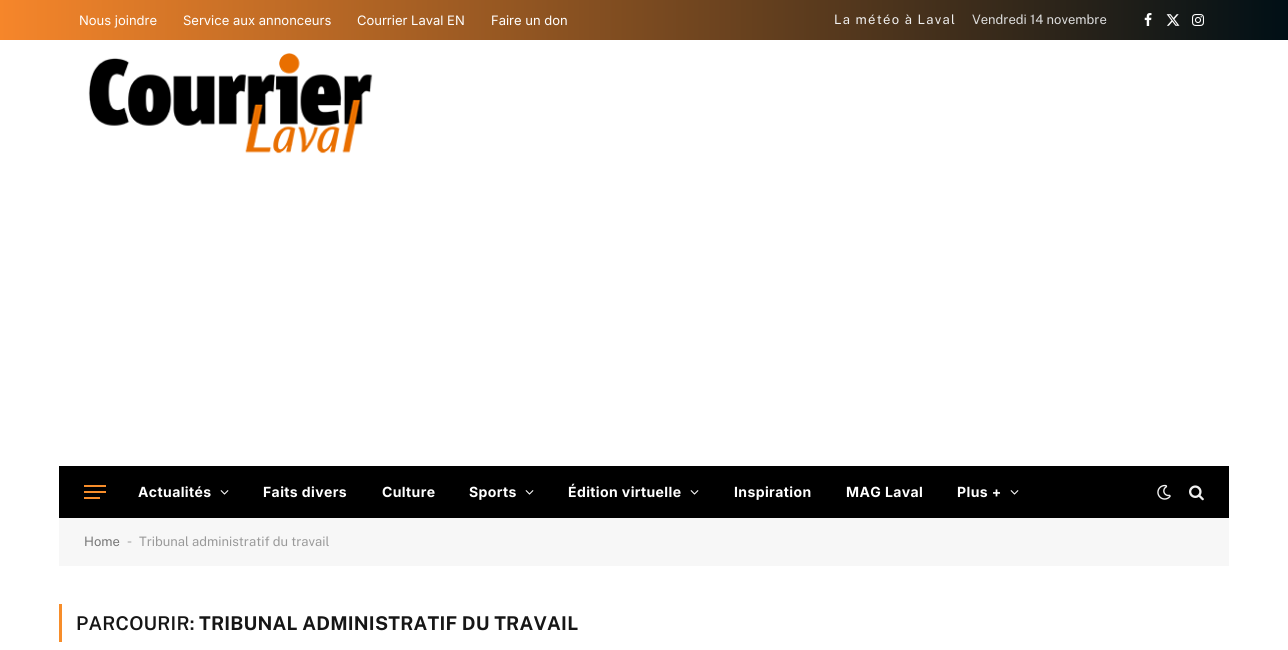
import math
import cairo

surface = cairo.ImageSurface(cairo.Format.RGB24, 1288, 650)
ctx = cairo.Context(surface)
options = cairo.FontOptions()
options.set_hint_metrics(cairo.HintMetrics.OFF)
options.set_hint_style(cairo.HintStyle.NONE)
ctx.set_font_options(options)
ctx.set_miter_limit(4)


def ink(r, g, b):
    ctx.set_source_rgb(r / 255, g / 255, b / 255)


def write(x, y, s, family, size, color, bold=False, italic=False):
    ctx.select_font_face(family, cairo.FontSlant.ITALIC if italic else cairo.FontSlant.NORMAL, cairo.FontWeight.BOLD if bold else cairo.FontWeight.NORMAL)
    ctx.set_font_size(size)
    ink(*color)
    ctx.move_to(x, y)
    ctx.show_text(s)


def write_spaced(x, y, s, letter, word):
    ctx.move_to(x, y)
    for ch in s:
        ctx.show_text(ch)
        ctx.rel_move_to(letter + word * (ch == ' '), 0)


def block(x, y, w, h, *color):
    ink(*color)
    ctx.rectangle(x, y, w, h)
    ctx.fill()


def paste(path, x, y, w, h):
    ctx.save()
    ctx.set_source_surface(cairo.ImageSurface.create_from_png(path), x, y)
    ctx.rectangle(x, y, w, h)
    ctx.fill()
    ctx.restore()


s1 = dict(family="Inter", size=13, color=(255, 255, 255))
s2 = dict(family="Public Sans", size=13, color=(221, 221, 221))
s3 = dict(family="Public Sans", size=13, color=(119, 119, 119))
s4 = dict(family="Liberation Sans", size=15, color=(172, 172, 172))
s5 = dict(family="Public Sans", size=13, color=(153, 153, 153))

ink(255, 255, 255)
ctx.paint()
gradient = cairo.LinearGradient(0, 20, 1288, 20)
gradient.add_color_stop_rgba(0, 0.965, 0.525, 0.165, 1)
gradient.add_color_stop_rgba(1, 0, 0.059, 0.086, 1)
ctx.set_source(gradient)
ctx.rectangle(0, 0, 1288, 40)
ctx.fill()
write(79, 25, "Nous joindre", **s1)
write(183, 25, "Service aux annonceurs", **s1)
write(357, 25, "Courrier Laval EN", **s1)
write(491, 25, "Faire un don", **s1)
ctx.select_font_face("Public Sans")
ink(240, 240, 240)
write_spaced(834, 24, "La météo à Laval", 1.25, 0)
write(972, 24, "Vendredi 14 novembre", **s2)
paste("pic1.png", 1144, 13, 8, 13)
paste("pic2.png", 1166, 14, 14, 12)
paste("pic3.png", 1192, 14, 12, 12)
paste("pic4.png", 88, 53, 285, 101)
block(59, 466, 1170, 52, 0, 0, 0)
block(84, 497, 16, 2, 247, 141, 42)
block(84, 485, 22, 2, 247, 141, 42)
block(84, 491, 22, 2, 247, 141, 42)
ctx.select_font_face("Inter", cairo.FontSlant.NORMAL, cairo.FontWeight.BOLD)
ctx.set_font_size(14)
ink(255, 255, 255)
write_spaced(138, 497, "Actualités", 0.4, 0)
paste("pic5.png", 220, 490, 9, 5)
write_spaced(263, 497, "Faits divers", 0.4, 0)
write_spaced(382, 497, "Culture", 0.4, 0)
write_spaced(469, 497, "Sports", 0.4, 0)
paste("pic5.png", 525, 490, 9, 5)
write_spaced(568, 497, "Édition virtuelle", 0.4, 0)
paste("pic5.png", 690, 490, 9, 5)
write_spaced(734, 497, "Inspiration", 0.4, 0)
write_spaced(846, 497, "MAG Laval", 0.4, 0)
write_spaced(957, 497, "Plus +", 0.4, 0)
paste("pic5.png", 1010, 490, 9, 5)
paste("pic6.png", 1157, 484, 14, 16)
paste("pic7.png", 1189, 485, 15, 16)
block(59, 518, 1170, 48, 247, 247, 247)
write(84, 546, "Home", **s3)
write(127, 546, "-", **s4)
write(139, 546, "Tribunal administratif du travail", **s5)
block(59, 604, 3, 38, 247, 141, 42)
ctx.select_font_face("Public Sans SemiBold")
ctx.set_font_size(19)
ink(22, 22, 22)
write_spaced(76, 630, "PARCOURIR:", 0.2, 0)
ctx.select_font_face("Public Sans", cairo.FontSlant.NORMAL, cairo.FontWeight.BOLD)
write_spaced(199, 630, "TRIBUNAL ADMINISTRATIF DU TRAVAIL", 0.2, 0)
surface.write_to_png("screenshot.png")
